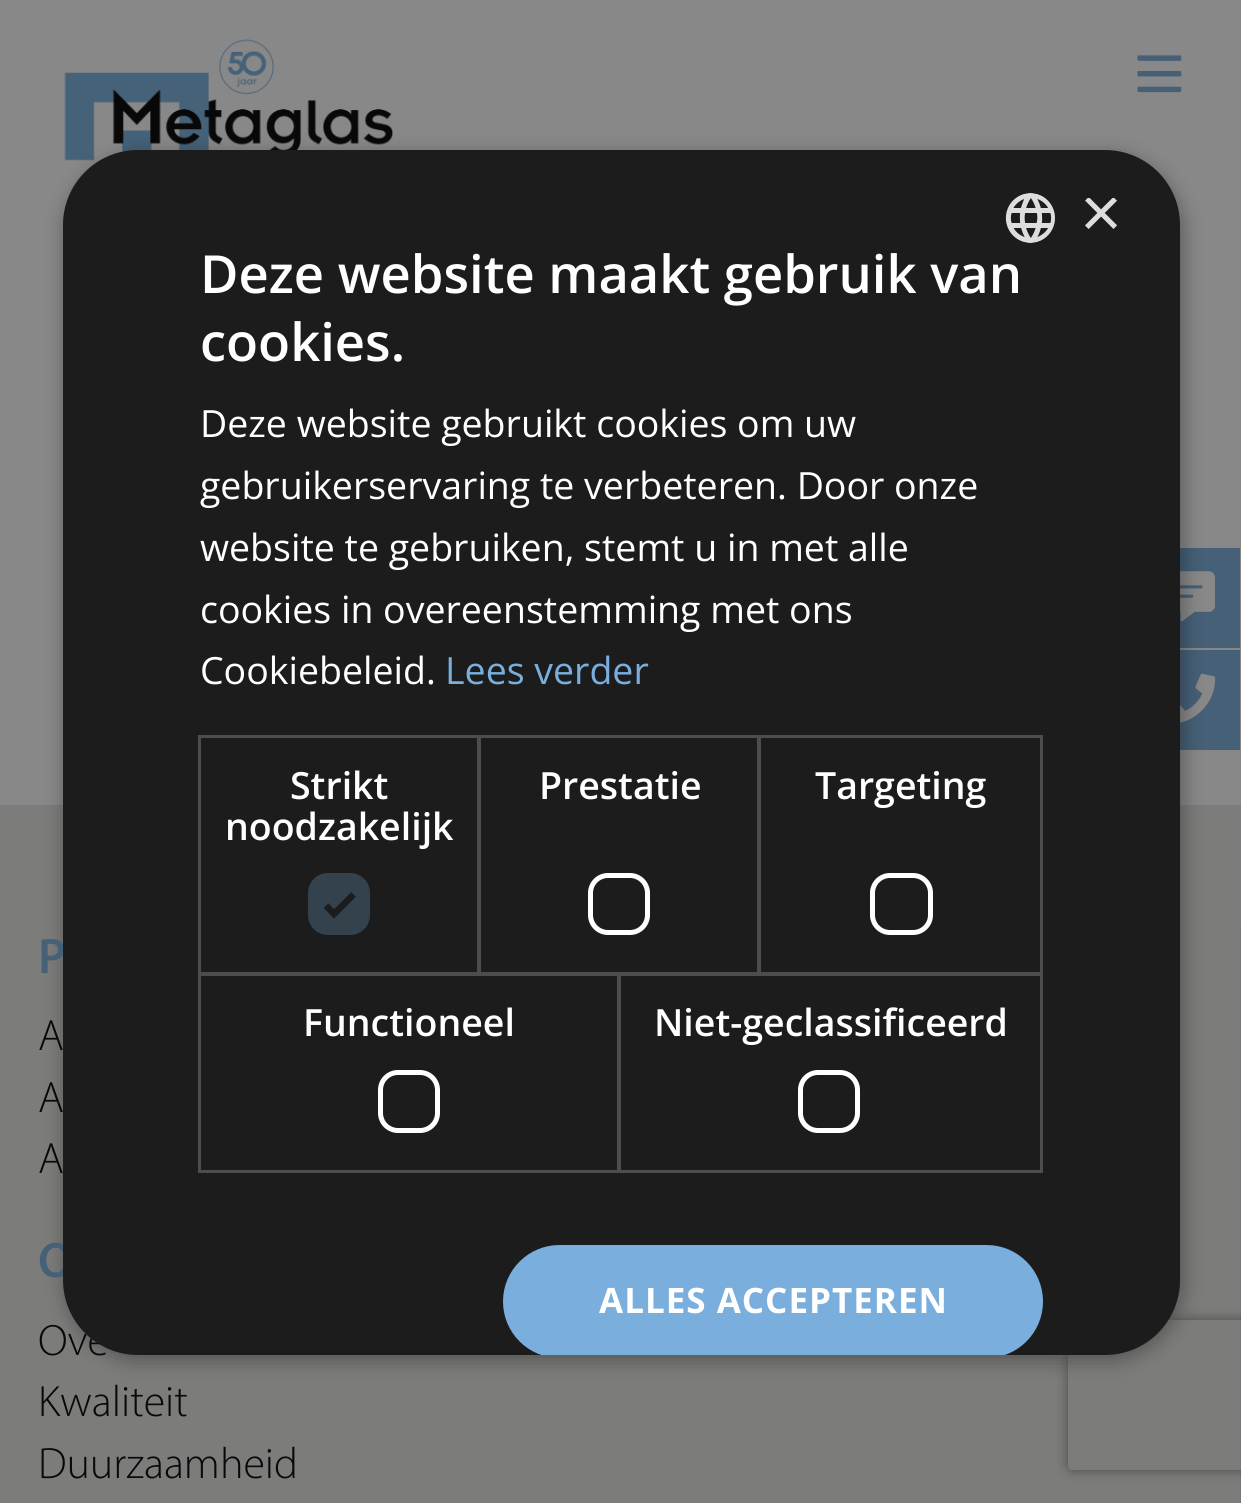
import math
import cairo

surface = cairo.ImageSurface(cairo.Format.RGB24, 1241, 1503)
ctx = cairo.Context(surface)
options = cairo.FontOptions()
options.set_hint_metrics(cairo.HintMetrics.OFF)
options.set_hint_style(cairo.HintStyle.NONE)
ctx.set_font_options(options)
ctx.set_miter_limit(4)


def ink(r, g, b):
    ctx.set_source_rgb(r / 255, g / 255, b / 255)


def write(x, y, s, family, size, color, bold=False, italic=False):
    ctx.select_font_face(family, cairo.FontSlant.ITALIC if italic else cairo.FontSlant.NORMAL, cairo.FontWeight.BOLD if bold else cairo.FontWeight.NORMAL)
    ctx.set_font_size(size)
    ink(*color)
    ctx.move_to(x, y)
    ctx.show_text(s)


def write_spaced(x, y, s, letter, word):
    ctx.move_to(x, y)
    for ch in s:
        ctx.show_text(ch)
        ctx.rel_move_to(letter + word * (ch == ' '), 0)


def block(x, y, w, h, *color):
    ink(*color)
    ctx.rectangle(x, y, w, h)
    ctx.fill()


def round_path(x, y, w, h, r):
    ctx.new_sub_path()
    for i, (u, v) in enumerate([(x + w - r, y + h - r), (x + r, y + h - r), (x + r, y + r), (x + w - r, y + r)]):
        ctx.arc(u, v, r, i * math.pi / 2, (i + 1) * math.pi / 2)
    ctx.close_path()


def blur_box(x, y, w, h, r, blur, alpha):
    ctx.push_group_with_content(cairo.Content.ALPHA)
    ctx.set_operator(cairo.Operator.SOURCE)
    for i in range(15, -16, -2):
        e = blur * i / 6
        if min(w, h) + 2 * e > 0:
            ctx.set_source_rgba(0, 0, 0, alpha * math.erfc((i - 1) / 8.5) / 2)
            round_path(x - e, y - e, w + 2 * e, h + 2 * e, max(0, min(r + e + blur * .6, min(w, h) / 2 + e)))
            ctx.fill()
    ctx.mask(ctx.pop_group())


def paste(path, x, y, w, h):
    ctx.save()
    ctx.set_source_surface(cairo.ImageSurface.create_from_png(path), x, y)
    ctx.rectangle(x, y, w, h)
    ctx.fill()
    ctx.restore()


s1 = dict(family="Myriad SemiBold", size=50, color=(70, 96, 119))
s2 = dict(family="Myriad Light", size=44, color=(9, 9, 9))
s3 = dict(family="Liberation Sans", size=72, color=(221, 221, 221))
s4 = dict(family="Open Sans SemiBold", size=52.5, color=(255, 255, 255))
s5 = dict(family="Open Sans", size=37.5, color=(255, 255, 255))
s6 = dict(family="Open Sans", size=37.5, color=(122, 174, 221))
s7 = dict(family="Open Sans SemiBold", size=37.5, color=(255, 255, 255))

ink(136, 136, 136)
ctx.paint()
paste("pic1.png", 64, 39, 329, 122)
paste("pic2.png", 1137, 55, 45, 38)
block(1180, 548, 60, 100, 70, 96, 119)
paste("pic4.png", 1180, 571, 35, 51)
block(1180, 650, 60, 100, 70, 96, 119)
paste("pic5.png", 1180, 673, 36, 50)
block(0, 805, 1241, 698, 124, 124, 123)
ink(0, 0, 0)
blur_box(65, 155, 1118, 1205, 75, 10, 0.35)
write(38, 973, "P", **s1)
write(38, 1277, "O", **s1)
write(38, 1355, "Ove", **s2)
block(1240, 925, 1, 578, 118, 118, 117)
ctx.save()
ctx.set_fill_rule(cairo.FillRule.EVEN_ODD)
ctx.new_path()
ctx.move_to(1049, 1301)
ctx.line_to(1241, 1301)
ctx.line_to(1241, 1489)
ctx.line_to(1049, 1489)
ctx.close_path()
ctx.move_to(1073, 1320)
ctx.line_to(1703, 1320)
ctx.curve_to(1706, 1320, 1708, 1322, 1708, 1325)
ctx.line_to(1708, 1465)
ctx.curve_to(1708, 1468, 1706, 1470, 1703, 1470)
ctx.line_to(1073, 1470)
ctx.curve_to(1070, 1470, 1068, 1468, 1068, 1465)
ctx.line_to(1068, 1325)
ctx.curve_to(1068, 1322, 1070, 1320, 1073, 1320)
ctx.close_path()
ctx.clip()
ink(73, 73, 73)
blur_box(1068, 1320, 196, 150, 5, 6, 1)
ctx.restore()
ink(28, 28, 28)
round_path(63, 150, 1117, 1205, 75)
ctx.fill()
paste("pic3.png", 1005, 193, 50, 50)
ctx.save()
ctx.rectangle(1080, 198, 38, 37)
ctx.clip()
write(1080, 237, "×", **s3)
ctx.restore()
write(200, 293, "Deze website maakt gebruik van", **s4)
write(200, 361, "cookies.", **s4)
write(200, 437, "Deze website gebruikt cookies om uw", **s5)
write(200, 499, "gebruikerservaring te verbeteren. Door onze", **s5)
write(200, 561, "website te gebruiken, stemt u in met alle", **s5)
write(200, 623, "cookies in overeenstemming met ons", **s5)
write(200, 684, "Cookiebeleid.", **s5)
write(445, 684, "Lees verder", **s6)
ctx.rectangle(199.5, 736.5, 279, 237)
ink(77, 77, 77)
ctx.set_line_width(3)
ctx.stroke()
write(290, 799, "Strikt", **s7)
write(225, 840, "noodzakelijk", **s7)
ink(52, 66, 78)
round_path(308, 873, 62, 62, 20)
ctx.fill()
ctx.new_path()
ctx.move_to(326, 905.5)
ctx.line_to(334, 914)
ctx.line_to(353.5, 894.5)
ink(28, 28, 28)
ctx.set_line_width(6.6)
ctx.stroke()
ctx.rectangle(479.5, 736.5, 279, 237)
ink(77, 77, 77)
ctx.set_line_width(3)
ctx.stroke()
write(539, 799, "Prestatie", **s7)
round_path(590.5, 875.5, 57, 57, 17.5)
ctx.set_line_width(5)
ctx.stroke()
ctx.rectangle(759.5, 736.5, 282, 237)
ink(77, 77, 77)
ctx.set_line_width(3)
ctx.stroke()
write(815, 799, "Targeting", **s7)
round_path(872.5, 875.5, 58, 57, 17.5)
ctx.set_line_width(5)
ctx.stroke()
ctx.rectangle(199.5, 974.5, 419, 197)
ink(77, 77, 77)
ctx.set_line_width(3)
ctx.stroke()
write(303, 1036, "Functioneel", **s7)
round_path(380.5, 1072.5, 57, 58, 17.5)
ctx.set_line_width(5)
ctx.stroke()
ctx.rectangle(619.5, 974.5, 422, 197)
ink(77, 77, 77)
ctx.set_line_width(3)
ctx.stroke()
write(654, 1036, "Niet-geclassificeerd", **s7)
round_path(800.5, 1072.5, 57, 58, 17.5)
ctx.set_line_width(5)
ctx.stroke()
ctx.save()
round_path(63, 150, 1117, 1205, 75)
ctx.clip()
ink(122, 174, 221)
round_path(503, 1245, 540, 113, 56.5)
ctx.fill()
ctx.restore()
ctx.select_font_face("Open Sans", cairo.FontSlant.NORMAL, cairo.FontWeight.BOLD)
ctx.set_font_size(35)
write_spaced(599, 1313, "ALLES ACCEPTEREN", 1, 0)
write(38, 1050, "A", **s2)
write(38, 1112, "A", **s2)
write(38, 1173, "A", **s2)
write(38, 1416, "Kwaliteit", **s2)
write(38, 1478, "Duurzaamheid", **s2)
surface.write_to_png("screenshot.png")
